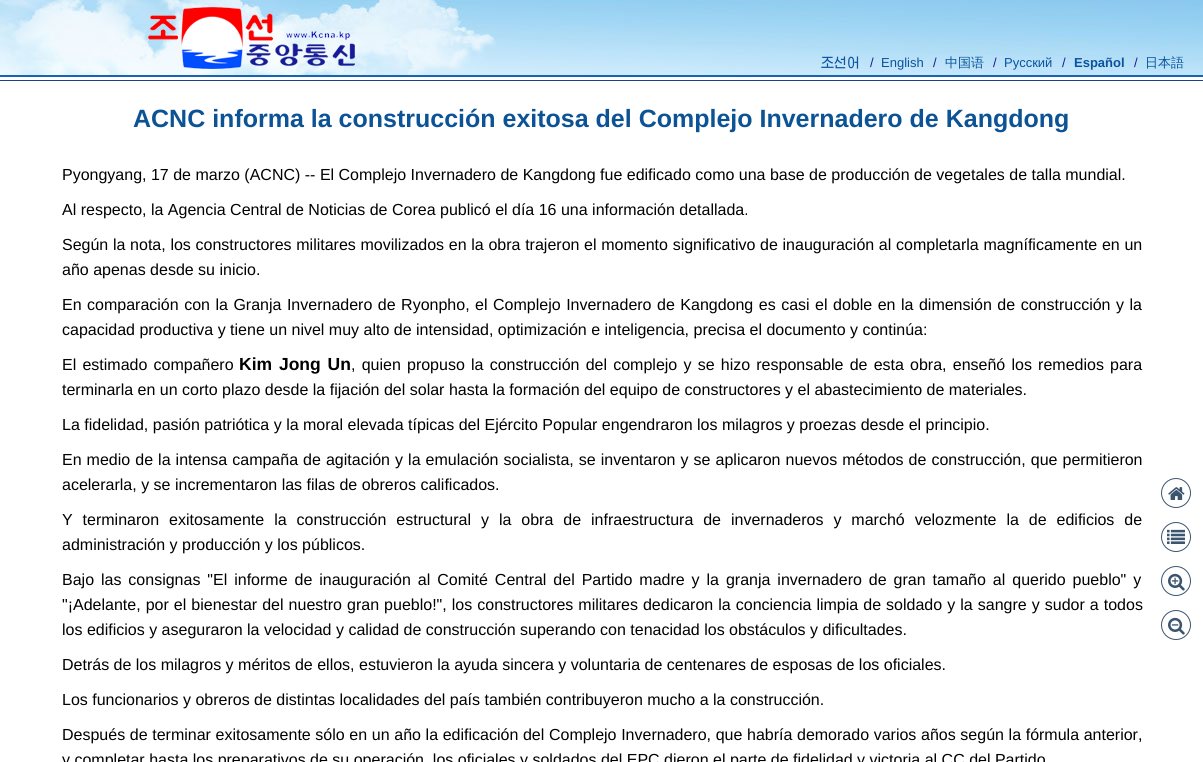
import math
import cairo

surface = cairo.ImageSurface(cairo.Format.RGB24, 1203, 762)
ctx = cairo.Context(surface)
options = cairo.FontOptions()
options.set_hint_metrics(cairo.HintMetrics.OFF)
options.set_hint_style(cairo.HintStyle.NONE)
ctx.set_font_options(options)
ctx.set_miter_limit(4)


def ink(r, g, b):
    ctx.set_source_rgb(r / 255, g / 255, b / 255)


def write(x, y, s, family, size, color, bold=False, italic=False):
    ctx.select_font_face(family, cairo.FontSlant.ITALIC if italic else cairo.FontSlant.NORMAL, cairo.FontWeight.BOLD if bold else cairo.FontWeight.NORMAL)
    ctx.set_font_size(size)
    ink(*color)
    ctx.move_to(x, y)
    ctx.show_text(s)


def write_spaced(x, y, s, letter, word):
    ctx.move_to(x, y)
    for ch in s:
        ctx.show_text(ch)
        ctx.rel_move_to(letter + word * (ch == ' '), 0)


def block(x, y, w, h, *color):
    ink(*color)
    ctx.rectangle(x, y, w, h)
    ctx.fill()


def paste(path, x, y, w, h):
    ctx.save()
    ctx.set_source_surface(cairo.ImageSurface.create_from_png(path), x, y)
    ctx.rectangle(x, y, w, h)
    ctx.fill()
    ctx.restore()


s1 = dict(family="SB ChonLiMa", size=13, color=(9, 83, 156))
s2 = dict(family="Liberation Sans", size=13, color=(23, 27, 150))
s3 = dict(family="Liberation Sans", size=13, color=(9, 83, 156))
s4 = dict(family="WenQuanYi Zen Hei Medium", size=13, color=(9, 83, 156))
s5 = dict(family="Liberation Sans", size=13, color=(9, 83, 156), bold=True)
s6 = dict(family="Liberation Sans", size=25, color=(12, 83, 150), bold=True)
s7 = dict(family="Liberation Sans", size=16, color=(0, 0, 0))

ink(255, 255, 255)
ctx.paint()
paste("pic1.png", 0, 0, 1203, 75)
block(0, 75, 1203, 2, 22, 100, 178)
paste("pic2.png", 148, 7, 207, 62)
write(821, 67, "조선어", **s1)
write(870, 67, "/", **s2)
write(881, 67, "English", **s3)
write(933, 67, "/", **s2)
write(945, 67, "中国语", **s4)
write(993, 67, "/", **s2)
write(1004, 67, "Русский", **s3)
write(1062, 67, "/", **s2)
write(1074, 67, "Español", **s5)
write(1134, 67, "/", **s2)
write(1145, 67, "日本語", **s4)
block(0, 80, 1203, 1, 22, 68, 137)
write(133, 127, "ACNC informa la construcción exitosa del Complejo Invernadero de Kangdong", **s6)
write(62, 180, "Pyongyang, 17 de marzo (ACNC) -- El Complejo Invernadero de Kangdong fue edificado como una base de producción de vegetales de talla mundial.", **s7)
write(62, 215, "Al respecto, la Agencia Central de Noticias de Corea publicó el día 16 una información detallada.", **s7)
write_spaced(62, 250, "Según la nota, los constructores militares movilizados en la obra trajeron el momento significativo de inauguración al completarla magníficamente en un", 0, 0.25)
write(62, 275, "año apenas desde su inicio.", **s7)
write_spaced(62, 310, "En comparación con la Granja Invernadero de Ryonpho, el Complejo Invernadero de Kangdong es casi el doble en la dimensión de construcción y la", 0, 1.05)
write(62, 335, "capacidad productiva y tiene un nivel muy alto de intensidad, optimización e inteligencia, precisa el documento y continúa:", **s7)
write_spaced(62, 370, "El estimado compañero", 0, 1.75)
ctx.select_font_face("Liberation Sans", cairo.FontSlant.NORMAL, cairo.FontWeight.BOLD)
ctx.set_font_size(17.5)
write_spaced(239, 370, "Kim Jong Un", 0, 2)
ctx.select_font_face("Liberation Sans")
ctx.set_font_size(16)
write_spaced(351, 370, ", quien propuso la construcción del complejo y se hizo responsable de esta obra, enseñó los remedios para", 0, 1.75)
write(62, 395, "terminarla en un corto plazo desde la fijación del solar hasta la formación del equipo de constructores y el abastecimiento de materiales.", **s7)
write(62, 430, "La fidelidad, pasión patriótica y la moral elevada típicas del Ejército Popular engendraron los milagros y proezas desde el principio.", **s7)
write_spaced(62, 465, "En medio de la intensa campaña de agitación y la emulación socialista, se inventaron y se aplicaron nuevos métodos de construcción, que permitieron", 0, 0.6)
write(62, 490, "acelerarla, y se incrementaron las filas de obreros calificados.", **s7)
write_spaced(62, 525, "Y terminaron exitosamente la construcción estructural y la obra de infraestructura de invernaderos y marchó velozmente la de edificios de", 0, 5.5)
write(62, 550, "administración y producción y los públicos.", **s7)
write_spaced(62, 585, "Bajo las consignas \"El informe de inauguración al Comité Central del Partido madre y la granja invernadero de gran tamaño al querido pueblo\" y", 0, 2.5)
write_spaced(62, 610, "\"¡Adelante, por el bienestar del nuestro gran pueblo!\", los constructores militares dedicaron la conciencia limpia de soldado y la sangre y sudor a todos", 0, 0.6)
write(62, 635, "los edificios y aseguraron la velocidad y calidad de construcción superando con tenacidad los obstáculos y dificultades.", **s7)
write(62, 670, "Detrás de los milagros y méritos de ellos, estuvieron la ayuda sincera y voluntaria de centenares de esposas de los oficiales.", **s7)
write(62, 705, "Los funcionarios y obreros de distintas localidades del país también contribuyeron mucho a la construcción.", **s7)
write_spaced(62, 740, "Después de terminar exitosamente sólo en un año la edificación del Complejo Invernadero, que habría demorado varios años según la fórmula anterior,", 0, 0.2)
write(62, 765, "y completar hasta los preparativos de su operación, los oficiales y soldados del EPC dieron el parte de fidelidad y victoria al CC del Partido", **s7)
ctx.new_path()
ctx.arc(1176, 493, 14.5, 0, 2 * math.pi)
ink(60, 85, 110)
ctx.set_line_width(1)
ctx.stroke()
paste("pic3.png", 1168, 487, 17, 13)
ctx.arc(1176, 537, 14.5, 0, 2 * math.pi)
ctx.stroke()
paste("pic4.png", 1167, 529, 18, 15)
ctx.arc(1176, 581, 14.5, 0, 2 * math.pi)
ctx.stroke()
paste("pic5.png", 1168, 573, 17, 18)
ctx.arc(1176, 625, 14.5, 0, 2 * math.pi)
ctx.stroke()
paste("pic6.png", 1168, 617, 17, 18)
surface.write_to_png("screenshot.png")
